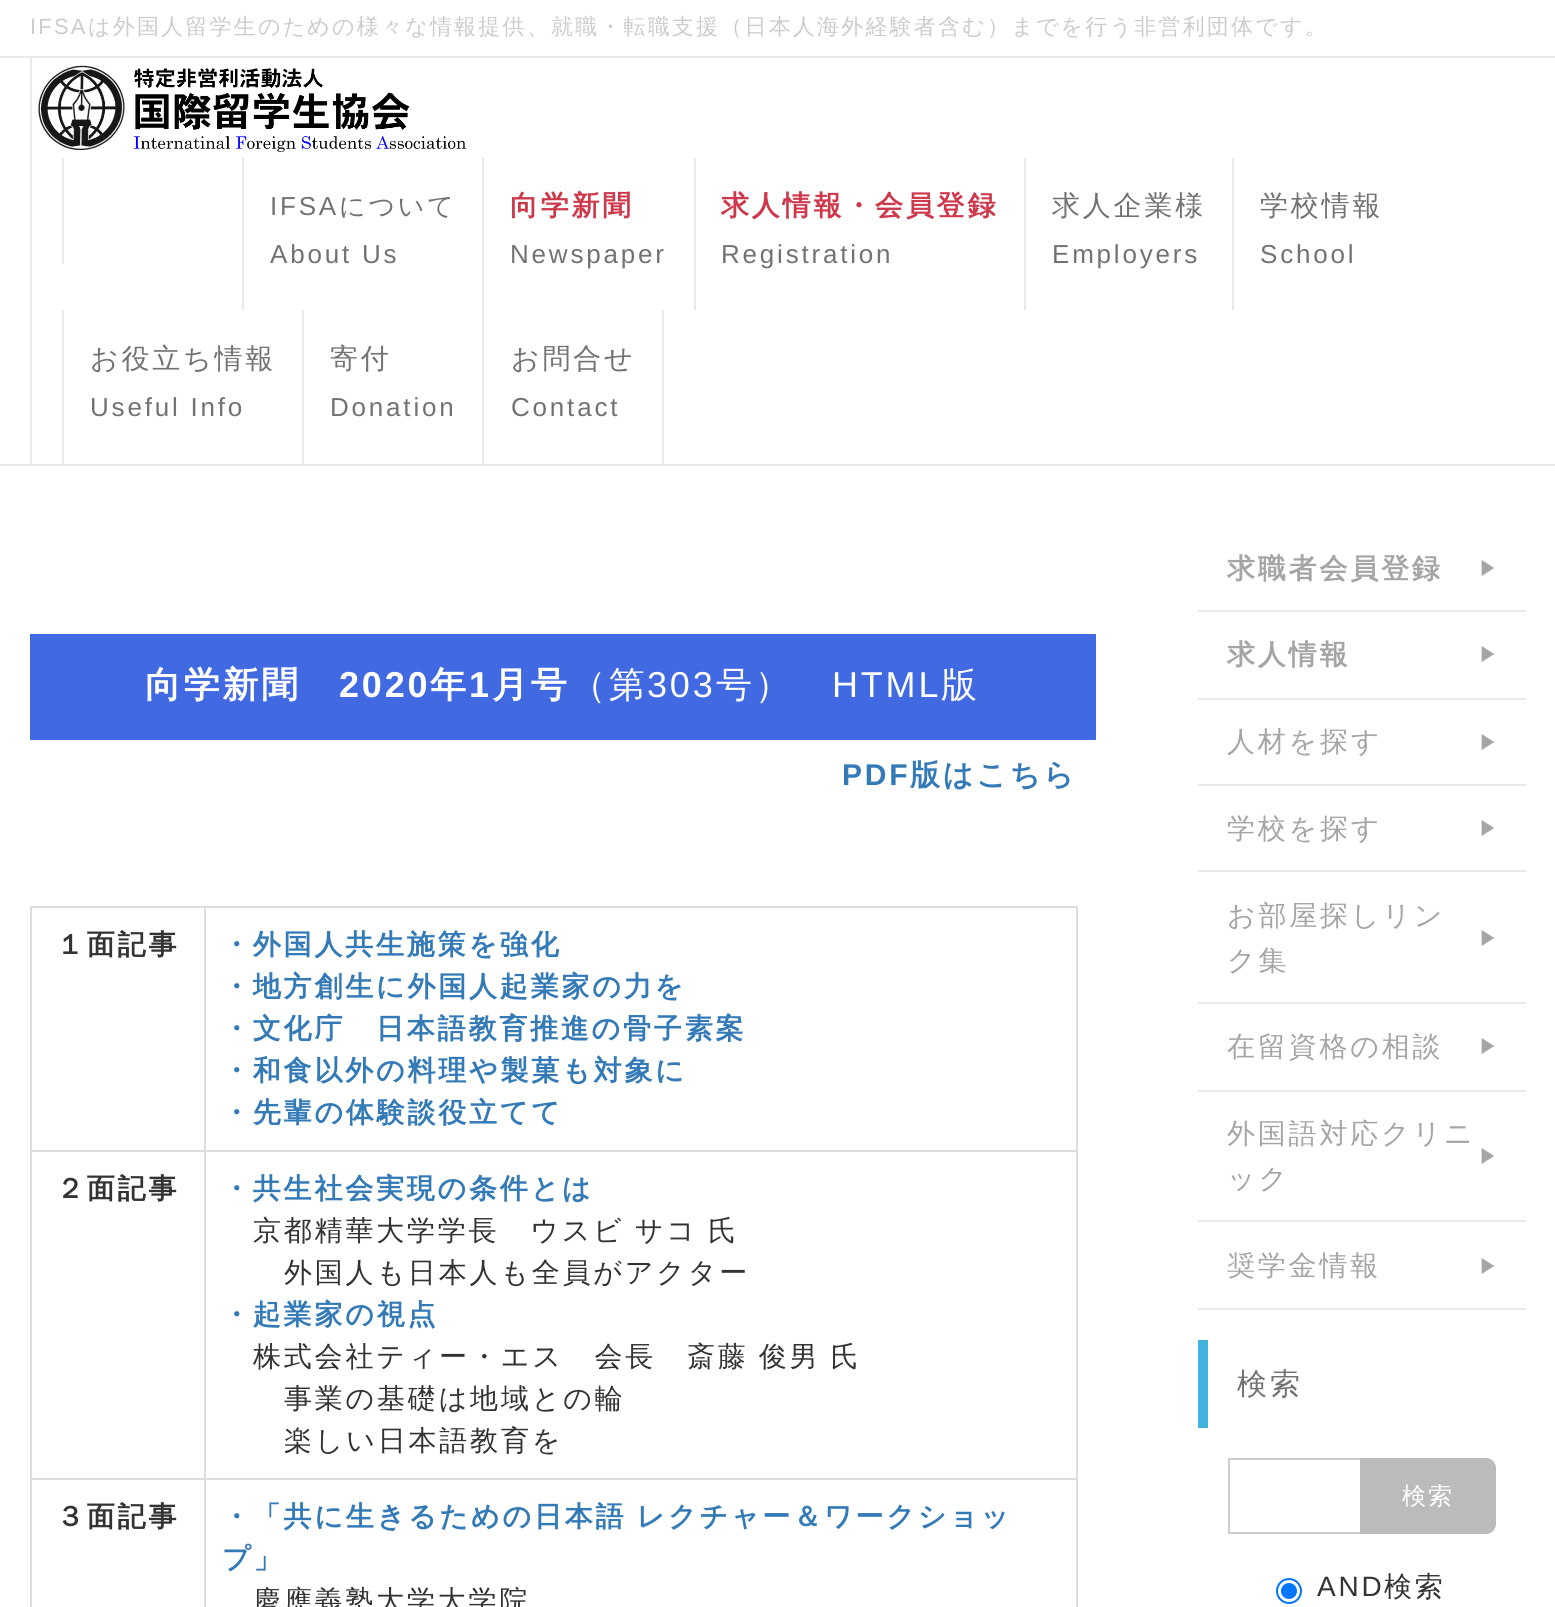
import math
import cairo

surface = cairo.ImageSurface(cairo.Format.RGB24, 1555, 1607)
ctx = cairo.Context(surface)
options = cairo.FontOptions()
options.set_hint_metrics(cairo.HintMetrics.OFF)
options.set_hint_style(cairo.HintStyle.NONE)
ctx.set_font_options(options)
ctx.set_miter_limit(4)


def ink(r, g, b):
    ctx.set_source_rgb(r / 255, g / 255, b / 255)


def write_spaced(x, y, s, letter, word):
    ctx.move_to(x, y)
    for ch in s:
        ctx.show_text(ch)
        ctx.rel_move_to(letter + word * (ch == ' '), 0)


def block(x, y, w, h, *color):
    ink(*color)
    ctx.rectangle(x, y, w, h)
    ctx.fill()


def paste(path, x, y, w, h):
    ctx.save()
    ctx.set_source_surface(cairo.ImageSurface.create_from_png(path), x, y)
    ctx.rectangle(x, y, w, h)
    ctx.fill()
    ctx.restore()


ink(255, 255, 255)
ctx.paint()
block(0, 56, 1555, 2, 233, 233, 233)
ctx.select_font_face("Liberation Sans")
ctx.set_font_size(22)
ink(204, 204, 204)
write_spaced(30, 34, "IFSA", 2.2, 0)
ctx.select_font_face("WenQuanYi Zen Hei Medium")
write_spaced(88, 34, "は外国人留学生のための様々な情報提供、就職・転職支援（日本人海外経験者含む）までを行う非営利団体です。", 2.2, 0)
paste("pic1.png", 38, 65, 428, 87)
block(30, 58, 2, 406, 233, 233, 233)
block(62, 158, 2, 106, 233, 233, 233)
block(242, 158, 2, 152, 233, 233, 233)
ctx.select_font_face("Liberation Sans")
ctx.set_font_size(26)
ink(115, 114, 114)
write_spaced(270, 215, "IFSA", 2.8, 0)
ctx.select_font_face("WenQuanYi Zen Hei Medium")
write_spaced(339, 215, "について", 2.8, 0)
ctx.select_font_face("Liberation Sans")
write_spaced(270, 263, "About Us", 2.8, 0)
block(482, 158, 2, 306, 233, 233, 233)
ctx.select_font_face("WenQuanYi Zen Hei", cairo.FontSlant.NORMAL, cairo.FontWeight.BOLD)
ctx.set_font_size(28)
ink(205, 56, 75)
write_spaced(510, 215, "向学新聞", 2.8, 0)
ctx.select_font_face("Liberation Sans")
ctx.set_font_size(26)
ink(115, 114, 114)
write_spaced(510, 263, "Newspaper", 2.8, 0)
block(694, 158, 2, 152, 233, 233, 233)
ctx.select_font_face("WenQuanYi Zen Hei", cairo.FontSlant.NORMAL, cairo.FontWeight.BOLD)
ctx.set_font_size(28)
ink(205, 56, 75)
write_spaced(721, 215, "求人情報・会員登録", 2.8, 0)
ctx.select_font_face("Liberation Sans")
ctx.set_font_size(26)
ink(115, 114, 114)
write_spaced(721, 263, "Registration", 2.8, 0)
block(1024, 158, 2, 152, 233, 233, 233)
ctx.select_font_face("WenQuanYi Zen Hei Medium")
ctx.set_font_size(28)
ink(115, 114, 114)
write_spaced(1052, 215, "求人企業様", 2.8, 0)
ctx.select_font_face("Liberation Sans")
ctx.set_font_size(26)
write_spaced(1052, 263, "Employers", 2.8, 0)
block(1232, 158, 2, 152, 233, 233, 233)
ctx.select_font_face("WenQuanYi Zen Hei Medium")
ctx.set_font_size(28)
ink(115, 114, 114)
write_spaced(1260, 215, "学校情報", 2.8, 0)
ctx.select_font_face("Liberation Sans")
ctx.set_font_size(26)
write_spaced(1260, 263, "School", 2.8, 0)
block(62, 310, 2, 154, 233, 233, 233)
ctx.select_font_face("WenQuanYi Zen Hei Medium")
ctx.set_font_size(28)
ink(115, 114, 114)
write_spaced(90, 368, "お役立ち情報", 2.8, 0)
ctx.select_font_face("Liberation Sans")
ctx.set_font_size(26)
write_spaced(90, 416, "Useful Info", 2.8, 0)
block(302, 310, 2, 154, 233, 233, 233)
ctx.select_font_face("WenQuanYi Zen Hei Medium")
ctx.set_font_size(28)
ink(115, 114, 114)
write_spaced(330, 368, "寄付", 2.8, 0)
ctx.select_font_face("Liberation Sans")
ctx.set_font_size(26)
write_spaced(330, 416, "Donation", 2.8, 0)
block(662, 310, 2, 154, 233, 233, 233)
ctx.select_font_face("WenQuanYi Zen Hei Medium")
ctx.set_font_size(28)
ink(115, 114, 114)
write_spaced(511, 368, "お問合せ", 2.8, 0)
ctx.select_font_face("Liberation Sans")
ctx.set_font_size(26)
write_spaced(511, 416, "Contact", 2.8, 0)
block(0, 464, 1555, 2, 233, 233, 233)
block(30, 634, 1066, 106, 65, 105, 225)
ctx.select_font_face("WenQuanYi Zen Hei", cairo.FontSlant.NORMAL, cairo.FontWeight.BOLD)
ctx.set_font_size(36)
ink(255, 255, 255)
write_spaced(145, 697, "向学新聞", 2.8, 0)
ctx.select_font_face("Liberation Sans", cairo.FontSlant.NORMAL, cairo.FontWeight.BOLD)
write_spaced(339, 697, "2020", 2.8, 0)
ctx.select_font_face("WenQuanYi Zen Hei", cairo.FontSlant.NORMAL, cairo.FontWeight.BOLD)
write_spaced(430, 697, "年", 2.8, 0)
ctx.select_font_face("Liberation Sans", cairo.FontSlant.NORMAL, cairo.FontWeight.BOLD)
write_spaced(469, 697, "1", 2.8, 0)
ctx.select_font_face("WenQuanYi Zen Hei", cairo.FontSlant.NORMAL, cairo.FontWeight.BOLD)
write_spaced(492, 697, "月号", 2.8, 0)
ctx.select_font_face("WenQuanYi Zen Hei Medium")
write_spaced(570, 697, "（第", 2.8, 0)
ctx.select_font_face("Liberation Sans")
write_spaced(647, 697, "303", 2.8, 0)
ctx.select_font_face("WenQuanYi Zen Hei Medium")
write_spaced(716, 697, "号）", 2.8, 0)
ctx.select_font_face("Liberation Sans")
write_spaced(832, 697, "HTML", 2.8, 0)
ctx.select_font_face("WenQuanYi Zen Hei Medium")
write_spaced(941, 697, "版", 2.8, 0)
ctx.select_font_face("Liberation Sans", cairo.FontSlant.NORMAL, cairo.FontWeight.BOLD)
ctx.set_font_size(30)
ink(51, 122, 183)
write_spaced(842, 785, "PDF", 2.8, 0)
ctx.select_font_face("WenQuanYi Zen Hei", cairo.FontSlant.NORMAL, cairo.FontWeight.BOLD)
write_spaced(910, 785, "版はこちら", 2.8, 0)
block(204, 906, 874, 2, 221, 221, 221)
block(204, 1150, 874, 2, 221, 221, 221)
block(204, 1478, 874, 2, 221, 221, 221)
block(204, 1478, 2, 129, 221, 221, 221)
block(30, 1478, 176, 2, 221, 221, 221)
block(204, 1150, 2, 330, 221, 221, 221)
block(30, 1150, 176, 2, 221, 221, 221)
block(204, 906, 2, 246, 221, 221, 221)
block(30, 906, 176, 2, 221, 221, 221)
block(30, 1478, 2, 129, 221, 221, 221)
block(30, 1150, 2, 330, 221, 221, 221)
block(30, 906, 2, 246, 221, 221, 221)
ctx.set_font_size(28)
ink(51, 51, 51)
write_spaced(56, 954, "１面記事", 2.8, 0)
block(1076, 1478, 2, 129, 221, 221, 221)
block(1076, 1150, 2, 330, 221, 221, 221)
block(1076, 906, 2, 246, 221, 221, 221)
ink(51, 122, 183)
write_spaced(222, 954, "・外国人共生施策を強化", 2.8, 0)
write_spaced(222, 996, "・地方創生に外国人起業家の力を", 2.8, 0)
write_spaced(222, 1038, "・文化庁　日本語教育推進の骨子素案", 2.8, 0)
write_spaced(222, 1080, "・和食以外の料理や製菓も対象に", 2.8, 0)
write_spaced(222, 1122, "・先輩の体験談役立てて", 2.8, 0)
ink(51, 51, 51)
write_spaced(56, 1198, "２面記事", 2.8, 0)
ink(51, 122, 183)
write_spaced(222, 1198, "・共生社会実現の条件とは", 2.8, 0)
ctx.select_font_face("WenQuanYi Zen Hei Medium")
ink(51, 51, 51)
write_spaced(253, 1240, "京都精華大学学長　ウスビ サコ 氏", 2.8, -1)
write_spaced(284, 1282, "外国人も日本人も全員がアクター", 2.8, 0)
ctx.select_font_face("WenQuanYi Zen Hei", cairo.FontSlant.NORMAL, cairo.FontWeight.BOLD)
ink(51, 122, 183)
write_spaced(222, 1324, "・起業家の視点", 2.8, 0)
ctx.select_font_face("WenQuanYi Zen Hei Medium")
ink(51, 51, 51)
write_spaced(253, 1366, "株式会社ティー・エス　会長　斎藤 俊男 氏", 2.8, -1)
write_spaced(284, 1408, "事業の基礎は地域との輪", 2.8, 0)
write_spaced(284, 1450, "楽しい日本語教育を", 2.8, 0)
ctx.select_font_face("WenQuanYi Zen Hei", cairo.FontSlant.NORMAL, cairo.FontWeight.BOLD)
write_spaced(56, 1526, "３面記事", 2.8, 0)
ink(51, 122, 183)
write_spaced(222, 1526, "・「共に生きるための日本語 レクチャー＆ワークショッ", 2.8, -1)
write_spaced(222, 1568, "プ」", 2.8, 0)
ctx.select_font_face("WenQuanYi Zen Hei Medium")
ink(51, 51, 51)
write_spaced(253, 1610, "慶應義塾大学大学院", 2.8, 0)
block(1198, 610, 328, 2, 233, 233, 233)
ctx.select_font_face("WenQuanYi Zen Hei", cairo.FontSlant.NORMAL, cairo.FontWeight.BOLD)
ink(165, 165, 165)
write_spaced(1227, 578, "求職者会員登録", 2.8, 0)
paste("pic2.png", 1481, 560, 13, 16)
block(1198, 698, 328, 2, 233, 233, 233)
ink(165, 165, 165)
write_spaced(1227, 664, "求人情報", 2.8, 0)
paste("pic2.png", 1481, 646, 13, 16)
block(1198, 784, 328, 2, 233, 233, 233)
ctx.select_font_face("WenQuanYi Zen Hei Medium")
ink(165, 165, 165)
write_spaced(1227, 751, "人材を探す", 2.8, 0)
paste("pic2.png", 1481, 734, 13, 16)
block(1198, 870, 328, 2, 233, 233, 233)
ink(165, 165, 165)
write_spaced(1227, 838, "学校を探す", 2.8, 0)
paste("pic2.png", 1481, 820, 13, 16)
block(1198, 1002, 328, 2, 233, 233, 233)
ink(165, 165, 165)
write_spaced(1227, 925, "お部屋探しリン", 2.8, 0)
paste("pic2.png", 1481, 930, 13, 16)
write_spaced(1227, 970, "ク集", 2.8, 0)
block(1198, 1090, 328, 2, 233, 233, 233)
ink(165, 165, 165)
write_spaced(1227, 1056, "在留資格の相談", 2.8, 0)
paste("pic2.png", 1481, 1038, 13, 16)
block(1198, 1220, 328, 2, 233, 233, 233)
ink(165, 165, 165)
write_spaced(1227, 1143, "外国語対応クリニ", 2.8, 0)
paste("pic2.png", 1481, 1148, 13, 16)
write_spaced(1227, 1188, "ック", 2.8, 0)
block(1198, 1308, 328, 2, 233, 233, 233)
ink(165, 165, 165)
write_spaced(1227, 1275, "奨学金情報", 2.8, 0)
paste("pic2.png", 1481, 1258, 13, 16)
block(1198, 1340, 10, 88, 65, 178, 224)
ctx.set_font_size(30)
ink(115, 114, 114)
write_spaced(1237, 1394, "検索", 3, 0)
ctx.rectangle(1229, 1459, 132, 74)
ink(204, 204, 204)
ctx.stroke()
ink(186, 188, 188)
ctx.new_path()
ctx.move_to(1361, 1459)
ctx.line_to(1486, 1459)
ctx.curve_to(1491, 1459, 1495, 1463, 1495, 1468)
ctx.line_to(1495, 1524)
ctx.curve_to(1495, 1529, 1491, 1533, 1486, 1533)
ctx.line_to(1361, 1533)
ctx.close_path()
ctx.fill_preserve()
ctx.stroke()
ctx.set_font_size(24)
ink(255, 255, 255)
write_spaced(1402, 1504, "検索", 2, 0)
ctx.new_path()
ctx.arc(1289, 1591, 12, 0, 2 * math.pi)
ink(0, 117, 255)
ctx.stroke()
ctx.arc(1289, 1591, 8, 0, 2 * math.pi)
ctx.fill()
ctx.select_font_face("Liberation Sans")
ctx.set_font_size(28)
ink(51, 51, 51)
write_spaced(1317, 1596, "AND", 2.8, 0)
ctx.select_font_face("WenQuanYi Zen Hei Medium")
write_spaced(1384, 1596, "検索", 2.8, 0)
surface.write_to_png("screenshot.png")
